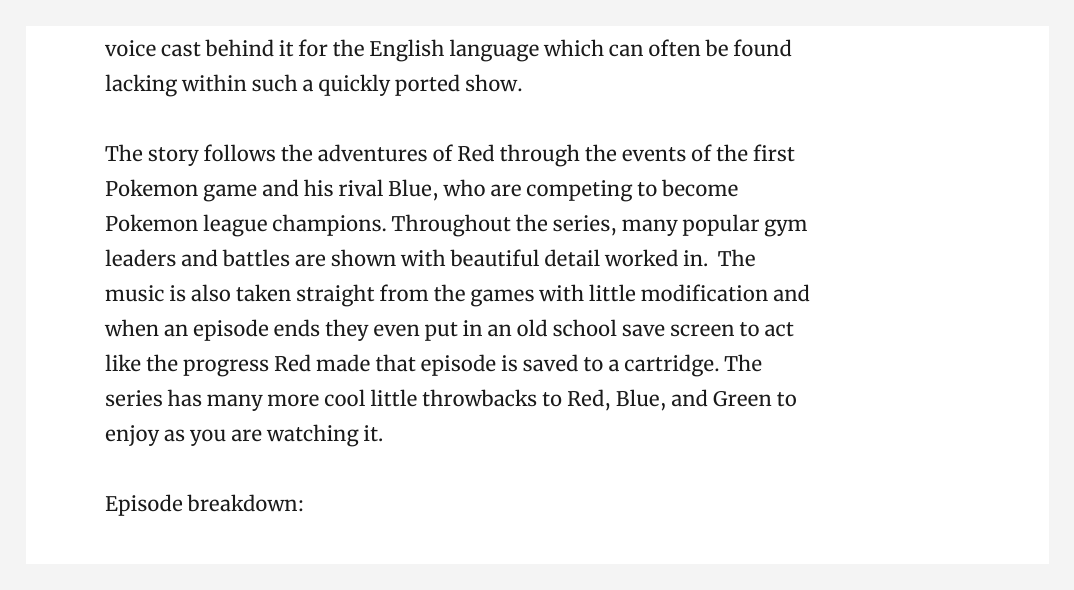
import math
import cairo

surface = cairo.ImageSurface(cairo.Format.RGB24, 1074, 590)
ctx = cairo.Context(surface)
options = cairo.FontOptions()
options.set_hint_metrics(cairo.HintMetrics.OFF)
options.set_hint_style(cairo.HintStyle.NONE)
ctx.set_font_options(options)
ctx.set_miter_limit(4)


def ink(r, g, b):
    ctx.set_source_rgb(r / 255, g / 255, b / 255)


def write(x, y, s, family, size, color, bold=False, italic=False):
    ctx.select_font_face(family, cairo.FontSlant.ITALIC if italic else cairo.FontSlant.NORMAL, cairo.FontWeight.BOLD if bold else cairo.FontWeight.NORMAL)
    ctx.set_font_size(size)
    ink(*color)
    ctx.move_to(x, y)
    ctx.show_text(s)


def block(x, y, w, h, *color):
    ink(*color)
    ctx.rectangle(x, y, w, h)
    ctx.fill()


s1 = dict(family="Merriweather", size=20, color=(26, 26, 26))

ink(244, 244, 244)
ctx.paint()
block(26, 26, 1023, 538, 255, 255, 255)
write(105, 56, "voice cast behind it for the English language which can often be found", **s1)
write(105, 91, "lacking within such a quickly ported show.", **s1)
write(105, 161, "The story follows the adventures of Red through the events of the first", **s1)
write(105, 196, "Pokemon game and his rival Blue, who are competing to become", **s1)
write(105, 231, "Pokemon league champions. Throughout the series, many popular gym", **s1)
write(105, 266, "leaders and battles are shown with beautiful detail worked in.  The", **s1)
write(105, 301, "music is also taken straight from the games with little modification and", **s1)
write(105, 336, "when an episode ends they even put in an old school save screen to act", **s1)
write(105, 371, "like the progress Red made that episode is saved to a cartridge. The", **s1)
write(105, 406, "series has many more cool little throwbacks to Red, Blue, and Green to", **s1)
write(105, 441, "enjoy as you are watching it.", **s1)
write(105, 511, "Episode breakdown:", **s1)
surface.write_to_png("screenshot.png")
